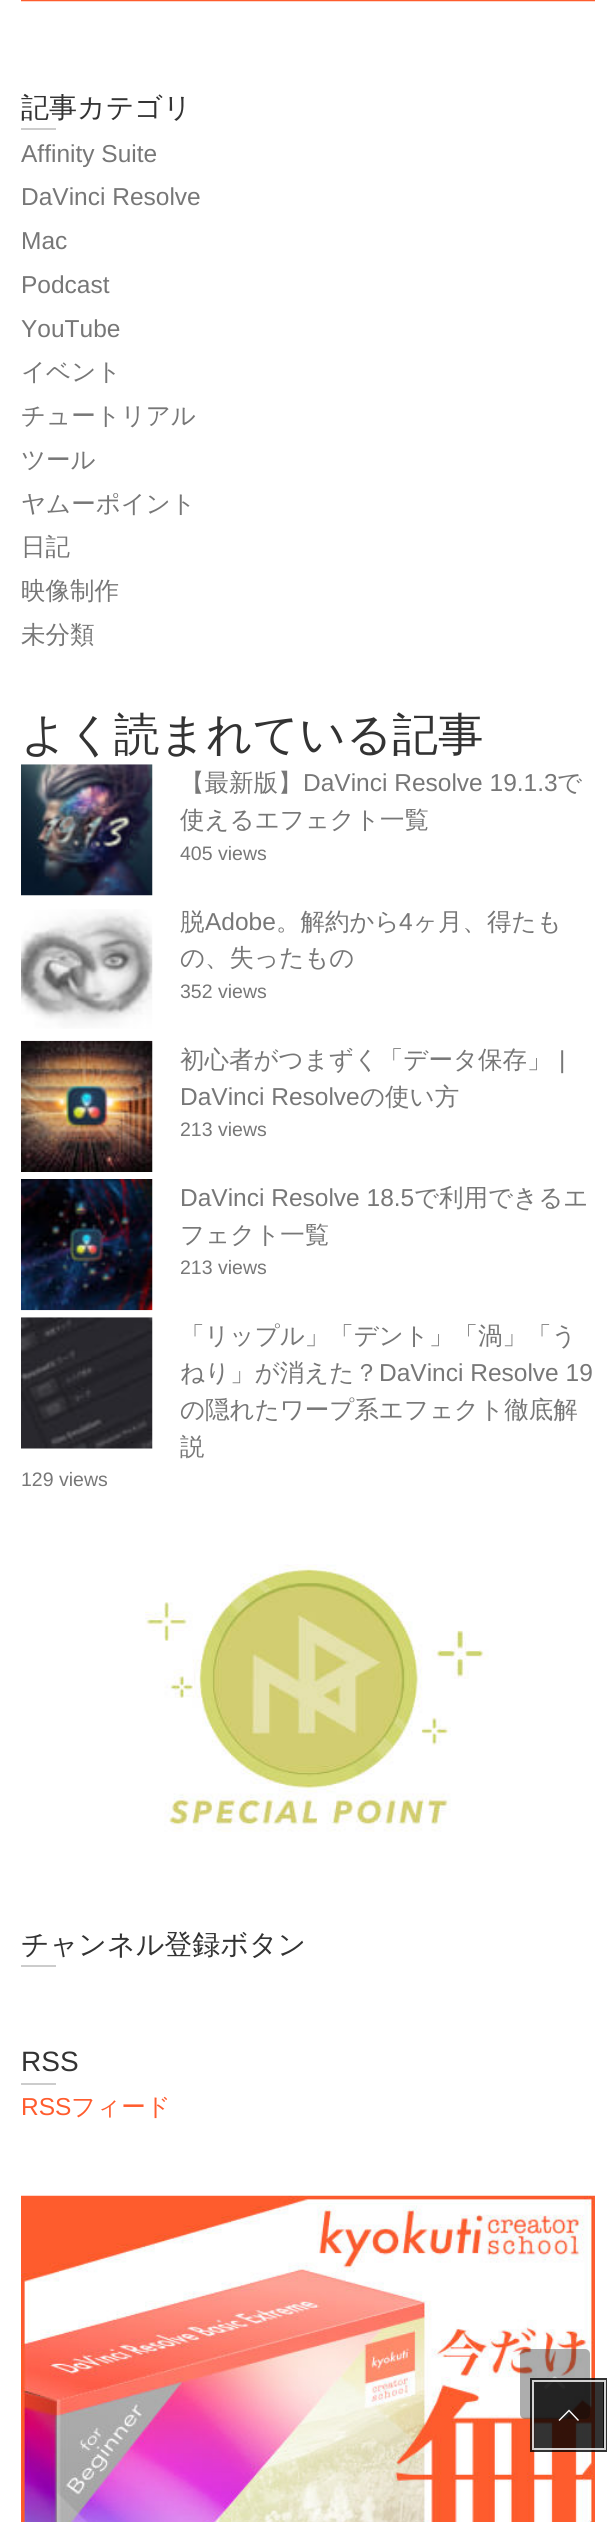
import math
import cairo

surface = cairo.ImageSurface(cairo.Format.RGB24, 615, 2522)
ctx = cairo.Context(surface)
options = cairo.FontOptions()
options.set_hint_metrics(cairo.HintMetrics.OFF)
options.set_hint_style(cairo.HintStyle.NONE)
ctx.set_font_options(options)
ctx.set_miter_limit(4)


def ink(r, g, b):
    ctx.set_source_rgb(r / 255, g / 255, b / 255)


def write(x, y, s, family, size, color, bold=False, italic=False):
    ctx.select_font_face(family, cairo.FontSlant.ITALIC if italic else cairo.FontSlant.NORMAL, cairo.FontWeight.BOLD if bold else cairo.FontWeight.NORMAL)
    ctx.set_font_size(size)
    ink(*color)
    ctx.move_to(x, y)
    ctx.show_text(s)


def block(x, y, w, h, *color):
    ink(*color)
    ctx.rectangle(x, y, w, h)
    ctx.fill()


def round_path(x, y, w, h, r):
    ctx.new_sub_path()
    for i, (u, v) in enumerate([(x + w - r, y + h - r), (x + r, y + h - r), (x + r, y + r), (x + w - r, y + r)]):
        ctx.arc(u, v, r, i * math.pi / 2, (i + 1) * math.pi / 2)
    ctx.close_path()


def paste(path, x, y, w, h):
    ctx.save()
    ctx.set_source_surface(cairo.ImageSurface.create_from_png(path), x, y)
    ctx.rectangle(x, y, w, h)
    ctx.fill()
    ctx.restore()


s1 = dict(family="WenQuanYi Zen Hei Medium", size=28, color=(51, 51, 51))
s2 = dict(family="Liberation Sans", size=24.5, color=(119, 119, 119))
s3 = dict(family="WenQuanYi Zen Hei Medium", size=24.5, color=(119, 119, 119))
s4 = dict(family="WenQuanYi Zen Hei Medium", size=45.5, color=(51, 51, 51))
s5 = dict(family="Liberation Sans", size=19.5, color=(119, 119, 119))
s6 = dict(family="Liberation Sans", size=28, color=(51, 51, 51))
s7 = dict(family="Liberation Sans", size=24.5, color=(255, 92, 46))
s8 = dict(family="WenQuanYi Zen Hei Medium", size=24.5, color=(255, 92, 46))

ink(255, 255, 255)
ctx.paint()
paste("pic1.png", 21, 0, 574, 2)
write(21, 117, "記事カテゴリ", **s1)
block(21, 128, 35, 2, 204, 204, 204)
write(21, 162, "Affinity Suite", **s2)
write(21, 205, "DaVinci Resolve", **s2)
write(21, 249, "Mac", **s2)
write(21, 293, "Podcast", **s2)
write(21, 337, "YouTube", **s2)
write(21, 380, "イベント", **s3)
write(21, 424, "チュートリアル", **s3)
write(21, 468, "ツール", **s3)
write(21, 512, "ヤムーポイント", **s3)
write(21, 555, "日記", **s3)
write(21, 599, "映像制作", **s3)
write(21, 643, "未分類", **s3)
write(21, 750, "よく読まれている記事", **s4)
paste("pic2.png", 21, 764, 132, 132)
write(180, 791, "【最新版】", **s3)
write(303, 791, "DaVinci Resolve 19.1.3", **s2)
write(557, 791, "で", **s3)
write(180, 828, "使えるエフェクト一覧", **s3)
write(180, 860, "405 views", **s5)
paste("pic3.png", 21, 909, 132, 120)
write(180, 930, "脱", **s3)
write(205, 930, "Adobe", **s2)
write(276, 930, "。解約から", **s3)
write(399, 930, "4", **s2)
write(413, 930, "ヶ月、得たも", **s3)
write(180, 966, "の、失ったもの", **s3)
write(180, 998, "352 views", **s5)
paste("pic4.png", 21, 1040, 132, 132)
write(180, 1068, "初心者がつまずく「データ保存」", **s3)
write(559, 1068, "|", **s2)
write(180, 1105, "DaVinci Resolve", **s2)
write(360, 1105, "の使い方", **s3)
write(180, 1136, "213 views", **s5)
paste("pic5.png", 21, 1179, 132, 132)
write(180, 1206, "DaVinci Resolve 18.5", **s2)
write(414, 1206, "で利用できるエ", **s3)
write(180, 1243, "フェクト一覧", **s3)
write(180, 1274, "213 views", **s5)
paste("pic6.png", 21, 1317, 132, 132)
write(180, 1344, "「リップル」「デント」「渦」「う", **s3)
write(180, 1381, "ねり」が消えた？", **s3)
write(379, 1381, "DaVinci Resolve 19", **s2)
write(180, 1418, "の隠れたワープ系エフェクト徹底解", **s3)
write(180, 1455, "説", **s3)
write(21, 1486, "129 views", **s5)
paste("pic7.png", 145, 1564, 344, 268)
write(21, 1954, "チャンネル登録ボタン", **s1)
block(21, 1965, 35, 2, 204, 204, 204)
write(21, 2071, "RSS", **s6)
block(21, 2083, 35, 2, 204, 204, 204)
write(21, 2115, "RSS", **s7)
write(71, 2115, "フィード", **s8)
paste("pic8.png", 21, 2195, 574, 327)
ctx.set_source_rgba(0.2, 0.2, 0.2, 0.4)
round_path(520, 2349, 70, 70, 5)
ctx.fill()
paste("pic9.png", 544, 2376, 22, 13)
ctx.rectangle(532, 2380, 73, 70)
ctx.set_source_rgba(0, 0, 0, 0.8)
ctx.set_line_width(4)
ctx.stroke()
ctx.rectangle(533, 2381, 72, 68)
ctx.set_source_rgba(1, 1, 1, 0.8)
ctx.set_line_width(2)
ctx.stroke()
ctx.set_source_rgba(0, 0, 0, 0.8)
ctx.rectangle(534, 2382, 70, 66)
ctx.fill()
ink(255, 255, 255)
ctx.new_path()
ctx.move_to(579, 2420)
ctx.line_to(578, 2421)
ctx.line_to(569, 2411.5)
ctx.line_to(559.5, 2421)
ctx.line_to(558.5, 2420)
ctx.line_to(569, 2409.5)
ctx.close_path()
ctx.fill()
surface.write_to_png("screenshot.png")
